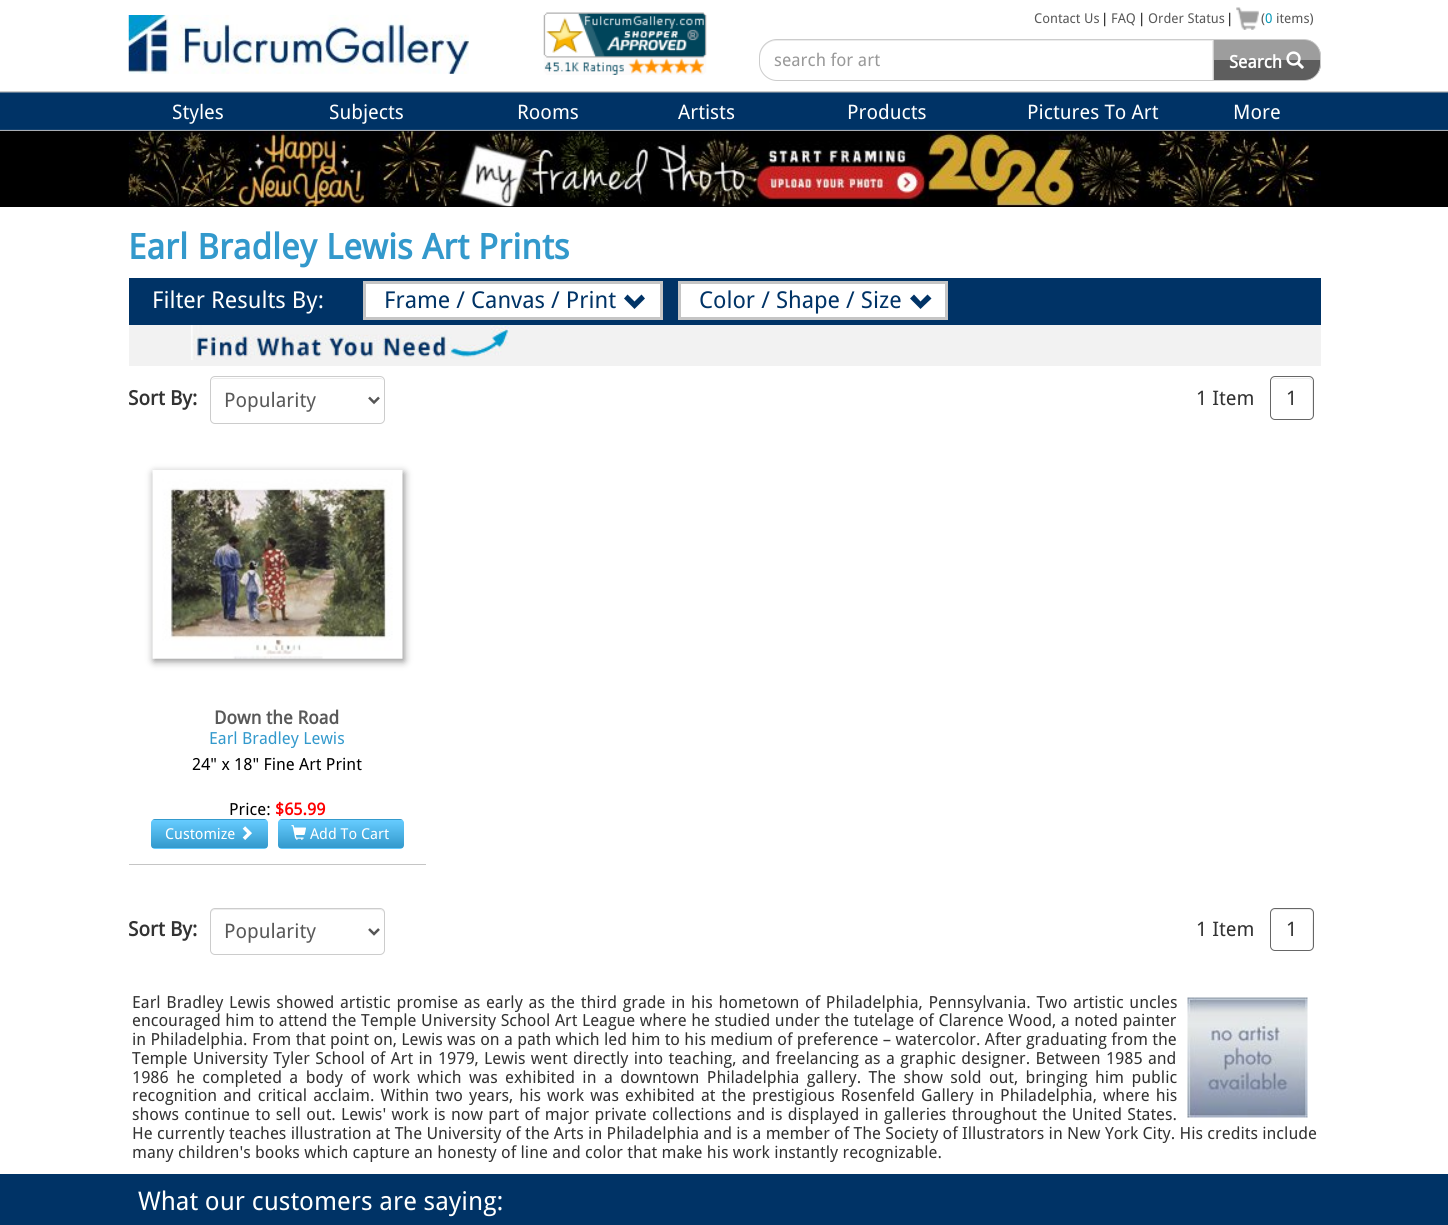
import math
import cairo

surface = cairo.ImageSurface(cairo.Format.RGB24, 1448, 1225)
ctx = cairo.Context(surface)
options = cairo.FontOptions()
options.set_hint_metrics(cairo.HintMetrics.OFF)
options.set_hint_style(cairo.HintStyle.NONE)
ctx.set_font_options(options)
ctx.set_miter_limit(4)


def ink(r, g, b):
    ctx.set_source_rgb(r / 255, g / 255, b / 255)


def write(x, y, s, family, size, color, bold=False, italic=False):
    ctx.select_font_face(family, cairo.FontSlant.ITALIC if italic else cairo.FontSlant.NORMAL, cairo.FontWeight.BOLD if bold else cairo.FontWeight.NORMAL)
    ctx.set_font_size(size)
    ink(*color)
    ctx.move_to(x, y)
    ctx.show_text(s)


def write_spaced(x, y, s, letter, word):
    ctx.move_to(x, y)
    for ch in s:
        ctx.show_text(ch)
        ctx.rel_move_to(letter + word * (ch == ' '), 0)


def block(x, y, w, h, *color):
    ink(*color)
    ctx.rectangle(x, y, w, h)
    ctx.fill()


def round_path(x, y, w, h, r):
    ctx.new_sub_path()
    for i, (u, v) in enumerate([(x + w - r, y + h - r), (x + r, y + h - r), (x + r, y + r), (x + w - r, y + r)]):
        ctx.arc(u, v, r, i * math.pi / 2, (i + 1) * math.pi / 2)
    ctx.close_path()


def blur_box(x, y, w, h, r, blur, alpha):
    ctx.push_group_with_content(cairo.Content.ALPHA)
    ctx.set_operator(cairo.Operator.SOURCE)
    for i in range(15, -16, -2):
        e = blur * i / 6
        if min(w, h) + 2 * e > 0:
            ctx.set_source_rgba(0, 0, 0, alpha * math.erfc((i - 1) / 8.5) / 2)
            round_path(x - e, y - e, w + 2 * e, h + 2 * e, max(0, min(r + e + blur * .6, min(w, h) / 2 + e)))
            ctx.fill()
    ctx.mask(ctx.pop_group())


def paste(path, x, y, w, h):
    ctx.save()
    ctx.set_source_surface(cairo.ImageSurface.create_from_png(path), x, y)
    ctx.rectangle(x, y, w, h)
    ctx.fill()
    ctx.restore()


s1 = dict(family="Droid Sans", size=13.5, color=(89, 89, 89))
s2 = dict(family="Droid Sans", size=13.5, color=(0, 0, 0))
s3 = dict(family="Droid Sans", size=13.5, color=(6, 153, 184))
s4 = dict(family="Droid Sans", size=17.5, color=(153, 153, 153))
s5 = dict(family="Droid Sans", size=17.5, color=(255, 255, 255), bold=True)
s6 = dict(family="Droid Sans", size=20, color=(255, 255, 255))
s7 = dict(family="Droid Sans", size=35, color=(51, 153, 204), bold=True)
s8 = dict(family="Droid Sans", size=23.25, color=(255, 255, 255))
s9 = dict(family="Droid Sans", size=23.25, color=(0, 51, 102))
s10 = dict(family="Droid Sans", size=20, color=(51, 51, 51), bold=True)
s11 = dict(family="Droid Sans", size=20, color=(89, 89, 89))
s12 = dict(family="Droid Sans", size=20, color=(51, 51, 51))
s13 = dict(family="Droid Sans", size=18.25, color=(89, 89, 89), bold=True)
s14 = dict(family="Droid Sans", size=16.67, color=(51, 153, 204))
s15 = dict(family="Droid Sans", size=16.67, color=(0, 0, 0))
s16 = dict(family="Droid Sans", size=16.67, color=(255, 0, 0), bold=True)
s17 = dict(family="Droid Sans", size=15, color=(255, 255, 255))
s18 = dict(family="Droid Sans", size=16.67, color=(51, 51, 51))
s19 = dict(family="Droid Sans", size=25.7, color=(255, 255, 255))

ink(255, 255, 255)
ctx.paint()
paste("pic1.png", 128, 15, 341, 59)
paste("pic2.png", 543, 12, 164, 63)
write(1034, 23, "Contact Us", **s1)
write(1101, 23, "|", **s2)
write(1111, 23, "FAQ", **s1)
write(1138, 23, "|", **s2)
write(1148, 23, "Order Status", **s1)
write(1226, 23, "|", **s2)
paste("pic3.png", 1236, 7, 23, 23)
write(1261, 23, "(", **s1)
write(1265, 23, "0", **s3)
write(1276, 23, "items)", **s1)
ink(236, 236, 236)
ctx.new_path()
ctx.move_to(776, 41)
ctx.line_to(1212, 41)
ctx.line_to(1212, 80)
ctx.line_to(1213, 80)
ctx.line_to(1213, 40)
ctx.line_to(776, 40)
ctx.curve_to(767, 40, 760, 47, 760, 56)
ctx.line_to(760, 58)
ctx.curve_to(760, 49, 767, 41, 776, 41)
ctx.close_path()
ctx.fill()
ctx.new_path()
ctx.move_to(777, 39.5)
ctx.line_to(1213.5, 39.5)
ctx.line_to(1213.5, 80.5)
ctx.line_to(777, 80.5)
ctx.curve_to(767.5, 80.5, 759.5, 72.5, 759.5, 63)
ctx.line_to(759.5, 57)
ctx.curve_to(759.5, 47.5, 767.5, 39.5, 777, 39.5)
ctx.close_path()
ink(204, 204, 204)
ctx.set_line_width(1)
ctx.stroke()
write(774, 66, "search for art", **s4)
ctx.save()
ctx.new_path()
ctx.move_to(1214, 39)
ctx.line_to(1303, 39)
ctx.curve_to(1313, 39, 1321, 47, 1321, 57)
ctx.line_to(1321, 63)
ctx.curve_to(1321, 73, 1313, 81, 1303, 81)
ctx.line_to(1214, 81)
ctx.close_path()
ctx.clip()
block(1214, 40, 107, 20, 157, 157, 157)
block(1214, 60, 107, 20, 94, 94, 94)
ctx.restore()
ink(204, 204, 204)
ctx.set_fill_rule(cairo.FillRule.EVEN_ODD)
ctx.new_path()
ctx.move_to(1214, 39)
ctx.line_to(1304, 39)
ctx.curve_to(1313, 39, 1321, 47, 1321, 56)
ctx.line_to(1321, 64)
ctx.curve_to(1321, 73, 1313, 81, 1304, 81)
ctx.line_to(1214, 81)
ctx.close_path()
ctx.move_to(1214, 40)
ctx.line_to(1304, 40)
ctx.curve_to(1313, 40, 1320, 47, 1320, 56)
ctx.line_to(1320, 64)
ctx.curve_to(1320, 73, 1313, 80, 1304, 80)
ctx.line_to(1214, 80)
ctx.close_path()
ctx.fill()
write(1229, 68, "Search", **s5)
paste("pic4.png", 1286, 51, 18, 18)
paste("pic5.png", 0, 91, 1448, 40)
write(172, 119, "Styles", **s6)
write(329, 119, "Subjects", **s6)
write(517, 119, "Rooms", **s6)
write(678, 119, "Artists", **s6)
write(847, 119, "Products", **s6)
write(1027, 119, "Pictures To Art", **s6)
write(1233, 119, "More", **s6)
block(0, 131, 1448, 76, 0, 0, 0)
paste("pic6.png", 128, 131, 1193, 76)
write(128, 259, "Earl Bradley Lewis Art Prints", **s7)
block(129, 278, 1192, 47, 0, 51, 102)
write(152, 308, "Filter Results By:", **s8)
ctx.rectangle(364.5, 282.5, 297, 36)
ctx.fill_preserve()
ink(197, 197, 197)
ctx.set_line_width(3)
ctx.stroke()
write(384, 308, "Frame / Canvas / Print", **s9)
ctx.set_fill_rule(cairo.FillRule.WINDING)
ctx.new_path()
ctx.move_to(645, 298.5)
ctx.line_to(634.5, 309)
ctx.line_to(624, 298.5)
ctx.line_to(627.5, 294.5)
ctx.line_to(634.5, 301.5)
ctx.line_to(641.5, 294.5)
ctx.close_path()
ctx.fill()
ink(255, 255, 255)
ctx.rectangle(679.5, 282.5, 267, 36)
ctx.fill_preserve()
ink(197, 197, 197)
ctx.stroke()
write(699, 308, "Color / Shape / Size", **s9)
ctx.new_path()
ctx.move_to(931.5, 298.5)
ctx.line_to(920.5, 309)
ctx.line_to(910, 298.5)
ctx.line_to(914, 294.5)
ctx.line_to(920.5, 301.5)
ctx.line_to(927.5, 294.5)
ctx.close_path()
ctx.fill()
block(129, 325, 1192, 41, 242, 242, 242)
paste("pic7.png", 191, 325, 318, 35)
write(128, 405, "Sort By:", **s10)
ink(236, 236, 236)
ctx.new_path()
ctx.move_to(215, 379)
ctx.line_to(380, 379)
ctx.curve_to(382, 379, 384, 380, 384, 382)
ctx.curve_to(384, 380, 382, 378, 380, 378)
ctx.line_to(215, 378)
ctx.curve_to(213, 378, 211, 380, 211, 382)
ctx.curve_to(211, 380, 213, 379, 215, 379)
ctx.close_path()
ctx.fill()
round_path(210.5, 376.5, 174, 47, 4.5)
ink(204, 204, 204)
ctx.set_line_width(1)
ctx.stroke()
ctx.new_path()
ctx.move_to(369, 397.5)
ctx.line_to(374, 402.5)
ctx.line_to(379, 397.5)
ink(85, 85, 85)
ctx.set_line_width(2.5)
ctx.stroke()
write(224, 407, "Popularity", **s11)
write(1196, 405, "1 Item", **s12)
ink(236, 236, 236)
ctx.new_path()
ctx.move_to(1275, 379)
ctx.line_to(1303, 379)
ctx.curve_to(1306, 379, 1312, 378, 1312, 382)
ctx.line_to(1312, 418)
ctx.curve_to(1312, 417, 1313, 416, 1313, 415)
ctx.line_to(1313, 382)
ctx.curve_to(1313, 380, 1311, 378, 1309, 378)
ctx.line_to(1275, 378)
ctx.curve_to(1273, 378, 1271, 380, 1271, 382)
ctx.curve_to(1271, 380, 1273, 379, 1275, 379)
ctx.close_path()
ctx.fill()
round_path(1270.5, 376.5, 43, 43, 4.5)
ink(102, 102, 102)
ctx.set_line_width(1)
ctx.stroke()
write(1286, 405, "1", **s12)
block(129, 864, 297, 1, 197, 197, 197)
ink(136, 136, 136)
blur_box(154, 473, 250, 188, 0, 4, 1)
paste("pic8.png", 152, 470, 251, 189)
write(214, 724, "Down the Road", **s13)
write(209, 744, "Earl Bradley Lewis", **s14)
write(192, 770, "24\" x 18\" Fine Art Print", **s15)
write(229, 815, "Price:", **s15)
write(275, 815, "$65.99", **s16)
ctx.save()
round_path(151, 819, 117, 30, 4)
ctx.clip()
gradient = cairo.LinearGradient(209, 793, 209, 820)
gradient.add_color_stop_rgba(0, 0.4, 0.8, 1, 1)
gradient.add_color_stop_rgba(1, 0.2, 0.6, 0.8, 1)
ctx.set_source(gradient)
ctx.rectangle(151, 819, 117, 1)
ctx.fill()
gradient = cairo.LinearGradient(209, 820, 209, 848)
gradient.add_color_stop_rgba(0, 0.4, 0.8, 1, 1)
gradient.add_color_stop_rgba(1, 0.2, 0.6, 0.8, 1)
ctx.set_source(gradient)
ctx.rectangle(151, 820, 117, 28)
ctx.fill()
gradient = cairo.LinearGradient(209, 848, 209, 875)
gradient.add_color_stop_rgba(0, 0.4, 0.8, 1, 1)
gradient.add_color_stop_rgba(1, 0.2, 0.6, 0.8, 1)
ctx.set_source(gradient)
ctx.rectangle(151, 848, 117, 1)
ctx.fill()
ctx.restore()
write(165, 839, "Customize", **s17)
paste("pic9.png", 242, 826, 10, 14)
ctx.save()
round_path(278, 819, 126, 30, 4)
ctx.clip()
gradient = cairo.LinearGradient(341, 793, 341, 820)
gradient.add_color_stop_rgba(0, 0.4, 0.8, 1, 1)
gradient.add_color_stop_rgba(1, 0.2, 0.6, 0.8, 1)
ctx.set_source(gradient)
ctx.rectangle(278, 819, 126, 1)
ctx.fill()
gradient = cairo.LinearGradient(341, 820, 341, 848)
gradient.add_color_stop_rgba(0, 0.4, 0.8, 1, 1)
gradient.add_color_stop_rgba(1, 0.2, 0.6, 0.8, 1)
ctx.set_source(gradient)
ctx.rectangle(278, 820, 126, 28)
ctx.fill()
gradient = cairo.LinearGradient(341, 848, 341, 875)
gradient.add_color_stop_rgba(0, 0.4, 0.8, 1, 1)
gradient.add_color_stop_rgba(1, 0.2, 0.6, 0.8, 1)
ctx.set_source(gradient)
ctx.rectangle(278, 848, 126, 1)
ctx.fill()
ctx.restore()
paste("pic10.png", 291, 825, 15, 15)
write(310, 839, "Add To Cart", **s17)
write(128, 936, "Sort By:", **s10)
ink(236, 236, 236)
ctx.new_path()
ctx.move_to(215, 910)
ctx.line_to(380, 910)
ctx.curve_to(382, 910, 384, 912, 384, 914)
ctx.line_to(384, 913)
ctx.curve_to(384, 911, 382, 909, 380, 909)
ctx.line_to(215, 909)
ctx.curve_to(213, 909, 211, 911, 211, 913)
ctx.line_to(211, 914)
ctx.curve_to(211, 912, 213, 910, 215, 910)
ctx.close_path()
ctx.fill()
round_path(210.5, 908.5, 174, 46, 4.5)
ink(204, 204, 204)
ctx.stroke()
ctx.new_path()
ctx.move_to(369, 929)
ctx.line_to(374, 934)
ctx.line_to(379, 929)
ink(85, 85, 85)
ctx.set_line_width(2.5)
ctx.stroke()
write(224, 938, "Popularity", **s11)
write(1196, 936, "1 Item", **s12)
ink(236, 236, 236)
ctx.new_path()
ctx.move_to(1275, 910)
ctx.line_to(1310, 910)
ctx.curve_to(1314, 911, 1312, 923, 1312, 925)
ctx.line_to(1312, 949)
ctx.curve_to(1314, 947, 1313, 943, 1313, 940)
ctx.line_to(1313, 930)
ctx.curve_to(1313, 905, 1317, 909, 1292, 909)
ctx.line_to(1281, 909)
ctx.curve_to(1276, 909, 1271, 908, 1271, 914)
ctx.curve_to(1271, 912, 1273, 910, 1275, 910)
ctx.close_path()
ctx.fill()
round_path(1270.5, 908.5, 43, 42, 4.5)
ink(102, 102, 102)
ctx.set_line_width(1)
ctx.stroke()
write(1286, 936, "1", **s12)
ctx.set_font_size(16.67)
write_spaced(132, 1008, "Earl Bradley Lewis showed artistic promise as early as the third grade in his hometown of Philadelphia, Pennsylvania. Two artistic uncles", 0, 1.4)
write_spaced(132, 1026, "encouraged him to attend the Temple University School Art League where he studied under the tutelage of Clarence Wood, a noted painter", 0, 0.25)
write(132, 1045, "in Philadelphia. From that point on, Lewis was on a path which led him to his medium of preference – watercolor. After graduating from the", **s18)
write_spaced(132, 1064, "Temple University Tyler School of Art in 1979, Lewis went directly into teaching, and freelancing as a graphic designer. Between 1985 and", 0, 1)
write_spaced(132, 1083, "1986 he completed a body of work which was exhibited in a downtown Philadelphia gallery. The show sold out, bringing him public", 0, 3.1)
write_spaced(132, 1101, "recognition and critical acclaim. Within two years, his work was exhibited at the prestigious Rosenfeld Gallery in Philadelphia, where his", 0, 1.75)
write_spaced(132, 1120, "shows continue to sell out.", 0, 1)
write_spaced(341, 1120, "Lewis' work is now part of major private collections and is displayed in galleries throughout the United States.", 0, 1)
write(132, 1139, "He currently teaches illustration at The University of the Arts in Philadelphia and is a member of The Society of Illustrators in New York City. His credits include", **s18)
write(132, 1158, "many children's books which capture an honesty of line and color that make his work instantly recognizable.", **s18)
paste("pic11.png", 1187, 997, 121, 121)
block(0, 1174, 1448, 51, 0, 51, 102)
write(138, 1210, "What our customers are saying:", **s19)
surface.write_to_png("screenshot.png")
